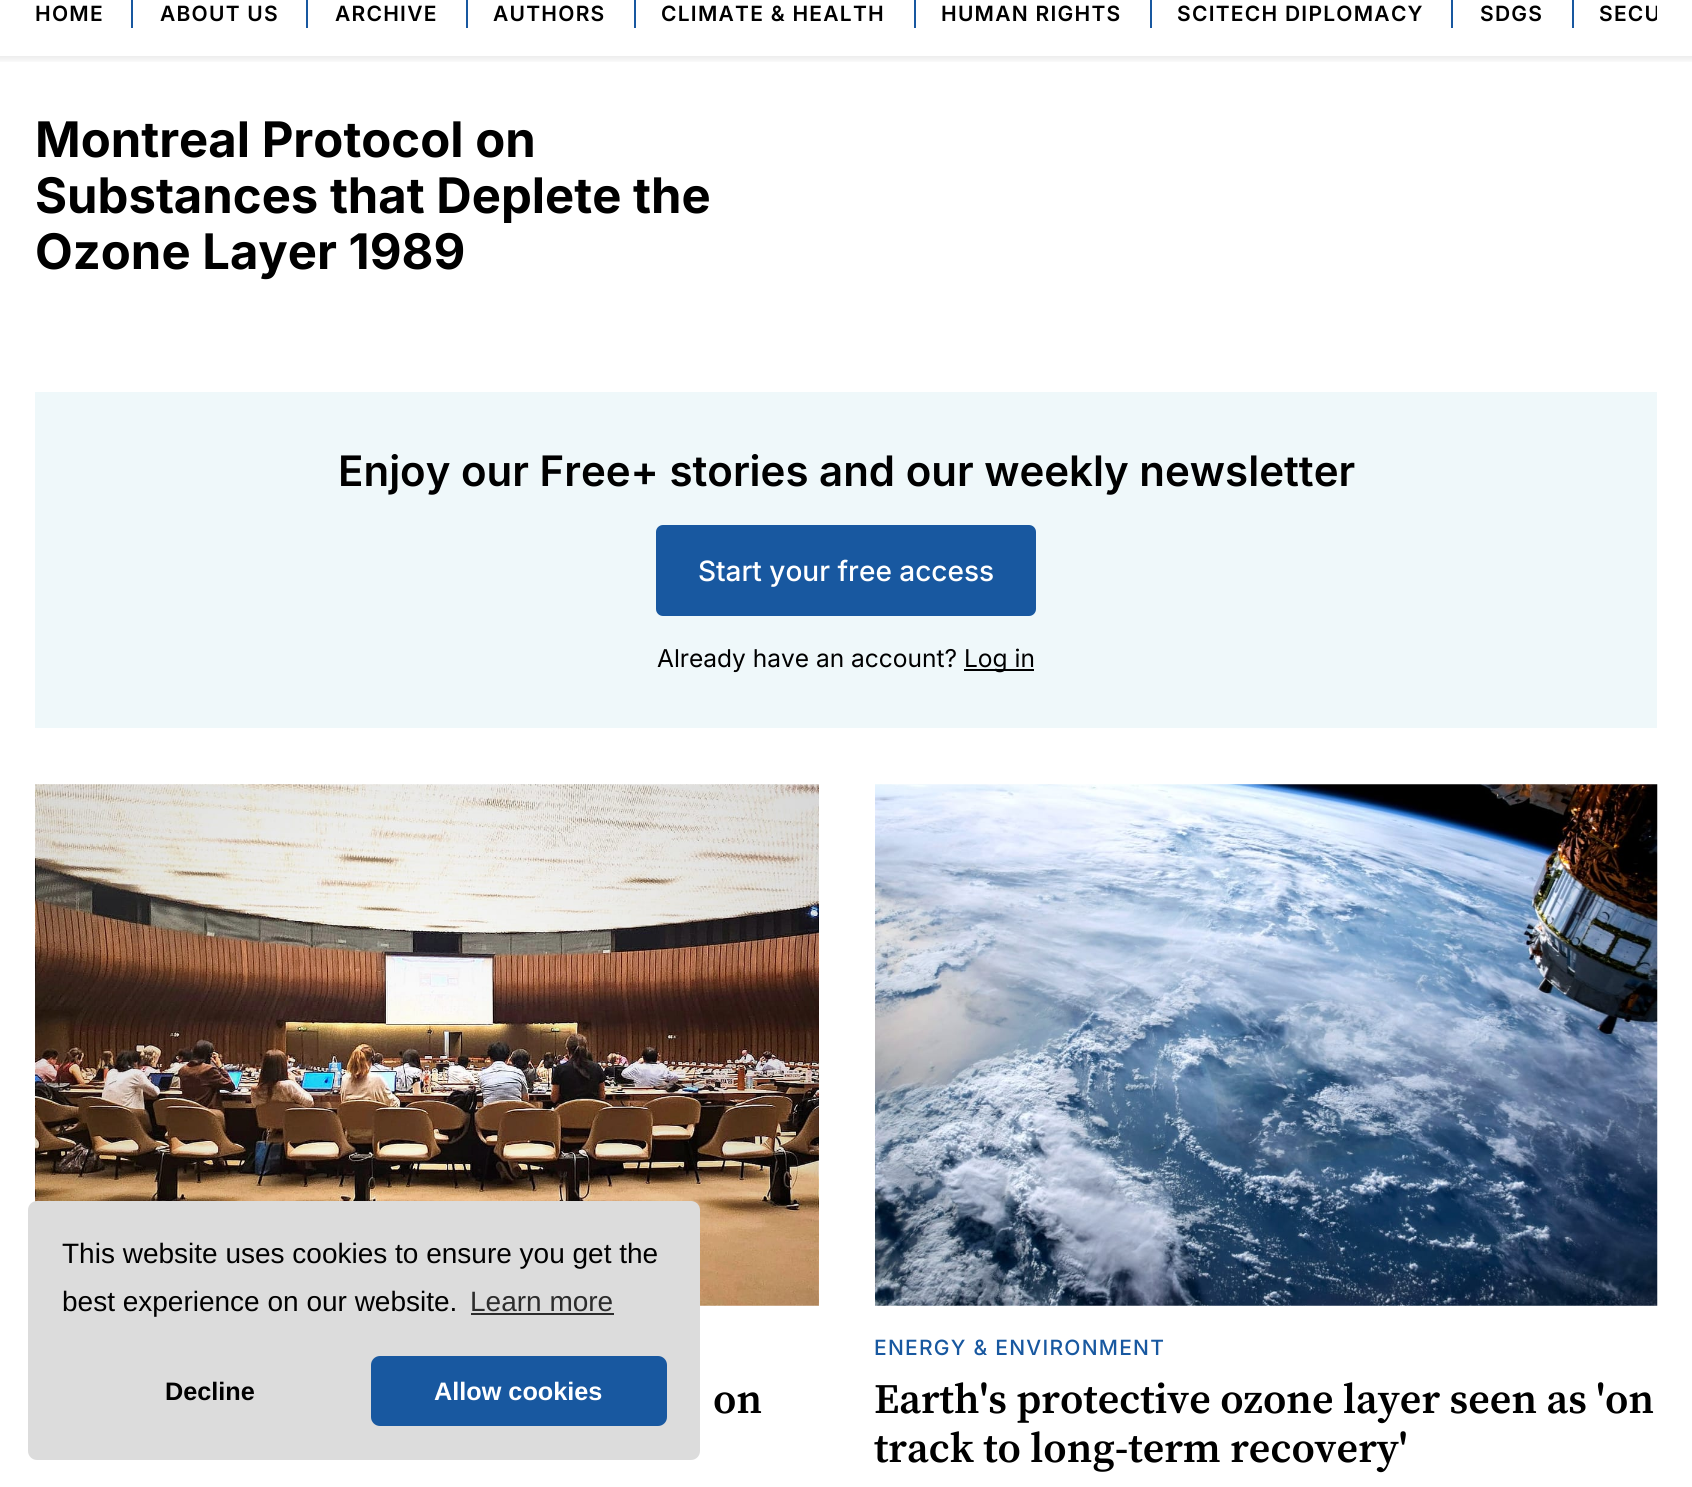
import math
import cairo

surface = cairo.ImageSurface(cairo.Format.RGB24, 1692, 1487)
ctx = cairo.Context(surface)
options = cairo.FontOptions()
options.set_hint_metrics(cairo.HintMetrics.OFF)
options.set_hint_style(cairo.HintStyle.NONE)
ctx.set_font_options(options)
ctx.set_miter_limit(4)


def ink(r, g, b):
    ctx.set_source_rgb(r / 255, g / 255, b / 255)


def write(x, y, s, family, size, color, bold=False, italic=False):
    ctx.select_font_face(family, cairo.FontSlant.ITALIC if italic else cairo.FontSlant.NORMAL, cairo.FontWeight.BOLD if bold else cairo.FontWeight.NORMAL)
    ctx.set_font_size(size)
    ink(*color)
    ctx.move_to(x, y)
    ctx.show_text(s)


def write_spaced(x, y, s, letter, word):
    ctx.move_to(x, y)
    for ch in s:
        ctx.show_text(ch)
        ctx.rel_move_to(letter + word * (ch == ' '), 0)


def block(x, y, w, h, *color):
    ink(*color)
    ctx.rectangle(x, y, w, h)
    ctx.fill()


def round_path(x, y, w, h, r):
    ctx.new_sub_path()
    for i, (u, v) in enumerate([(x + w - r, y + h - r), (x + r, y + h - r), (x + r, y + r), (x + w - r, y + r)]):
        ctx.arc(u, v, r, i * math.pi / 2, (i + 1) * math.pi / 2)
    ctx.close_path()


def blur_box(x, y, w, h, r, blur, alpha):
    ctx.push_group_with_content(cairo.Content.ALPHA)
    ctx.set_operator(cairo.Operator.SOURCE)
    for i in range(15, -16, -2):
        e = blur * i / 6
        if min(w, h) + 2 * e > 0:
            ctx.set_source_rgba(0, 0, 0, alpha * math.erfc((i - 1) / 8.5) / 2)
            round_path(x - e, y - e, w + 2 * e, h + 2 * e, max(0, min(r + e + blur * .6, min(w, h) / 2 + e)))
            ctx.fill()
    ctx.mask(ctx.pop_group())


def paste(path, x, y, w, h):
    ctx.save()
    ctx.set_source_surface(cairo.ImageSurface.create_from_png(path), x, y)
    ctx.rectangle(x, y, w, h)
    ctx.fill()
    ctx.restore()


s1 = dict(family="Inter", size=49, color=(0, 0, 0), bold=True)
s2 = dict(family="Inter SemiBold", size=42, color=(0, 0, 0))
s3 = dict(family="Inter Medium", size=28, color=(255, 255, 255))
s4 = dict(family="Inter", size=24.5, color=(0, 0, 0))
s5 = dict(family="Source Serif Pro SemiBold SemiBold", size=42, color=(0, 0, 0))
s6 = dict(family="Liberation Sans", size=28, color=(0, 0, 0))
s7 = dict(family="Liberation Sans", size=28, color=(44, 44, 44))
s8 = dict(family="Liberation Sans", size=25.25, color=(0, 0, 0), bold=True)
s9 = dict(family="Liberation Sans", size=25.25, color=(255, 255, 255), bold=True)

ink(255, 255, 255)
ctx.paint()
ctx.save()
ctx.rectangle(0, 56, 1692, 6)
ctx.clip()
ink(0, 0, 0)
blur_box(-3, -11, 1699, 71, 0, 3.5, 0.08)
ctx.restore()
ctx.select_font_face("Inter SemiBold")
ctx.set_font_size(21)
ink(0, 0, 0)
write_spaced(35, 21, "HOME", 1.25, 0)
block(131, 0, 2, 28, 24, 88, 160)
ink(0, 0, 0)
write_spaced(160, 21, "ABOUT US", 1.25, 0)
block(306, 0, 2, 28, 24, 88, 160)
ink(0, 0, 0)
write_spaced(335, 21, "ARCHIVE", 1.25, 0)
block(466, 0, 2, 28, 24, 88, 160)
ink(0, 0, 0)
write_spaced(493, 21, "AUTHORS", 1.25, 0)
block(634, 0, 2, 28, 24, 88, 160)
ink(0, 0, 0)
write_spaced(661, 21, "CLIMATE & HEALTH", 1.25, 0)
block(914, 0, 2, 28, 24, 88, 160)
ink(0, 0, 0)
write_spaced(941, 21, "HUMAN RIGHTS", 1.25, 0)
block(1150, 0, 2, 28, 24, 88, 160)
ink(0, 0, 0)
write_spaced(1177, 21, "SCITECH DIPLOMACY", 1.25, 0)
block(1451, 0, 2, 28, 24, 88, 160)
ink(0, 0, 0)
write_spaced(1480, 21, "SDGS", 1.25, 0)
block(1572, 0, 2, 28, 24, 88, 160)
ctx.save()
ctx.rectangle(35, 0, 1622, 56)
ctx.clip()
ink(0, 0, 0)
write_spaced(1599, 21, "SECU", 1.25, 0)
ctx.restore()
write(35, 157, "Montreal Protocol on", **s1)
write(35, 213, "Substances that Deplete the", **s1)
write(35, 269, "Ozone Layer 1989", **s1)
block(35, 392, 1622, 336, 239, 248, 250)
write(338, 486, "Enjoy our Free+ stories and our weekly newsletter", **s2)
ink(24, 88, 160)
round_path(656, 525, 380, 91, 7)
ctx.fill()
write(698, 581, "Start your free access", **s3)
write(657, 667, "Already have an account?", **s4)
block(964, 669, 70, 2, 0, 0, 0)
write(964, 667, "Log in", **s4)
paste("pic1.png", 35, 784, 784, 522)
write(713, 1413, "on", **s5)
paste("pic2.png", 875, 784, 783, 522)
ctx.select_font_face("Inter Medium")
ctx.set_font_size(21)
ink(24, 88, 160)
write_spaced(874, 1355, "ENERGY & ENVIRONMENT", 1.25, 0)
write(874, 1413, "Earth's protective ozone layer seen as 'on", **s5)
write(874, 1462, "track to long-term recovery'", **s5)
ink(220, 220, 220)
round_path(28, 1201, 672, 259, 9)
ctx.fill()
write(62, 1263, "This website uses cookies to ensure you get the", **s6)
write(62, 1311, "best experience on our website.", **s6)
write(470, 1311, "Learn more", **s7)
block(471, 1313, 143, 2, 44, 44, 44)
write(165, 1400, "Decline", **s8)
ink(24, 88, 160)
round_path(371, 1356, 296, 70, 9)
ctx.fill()
write(434, 1400, "Allow cookies", **s9)
surface.write_to_png("screenshot.png")
